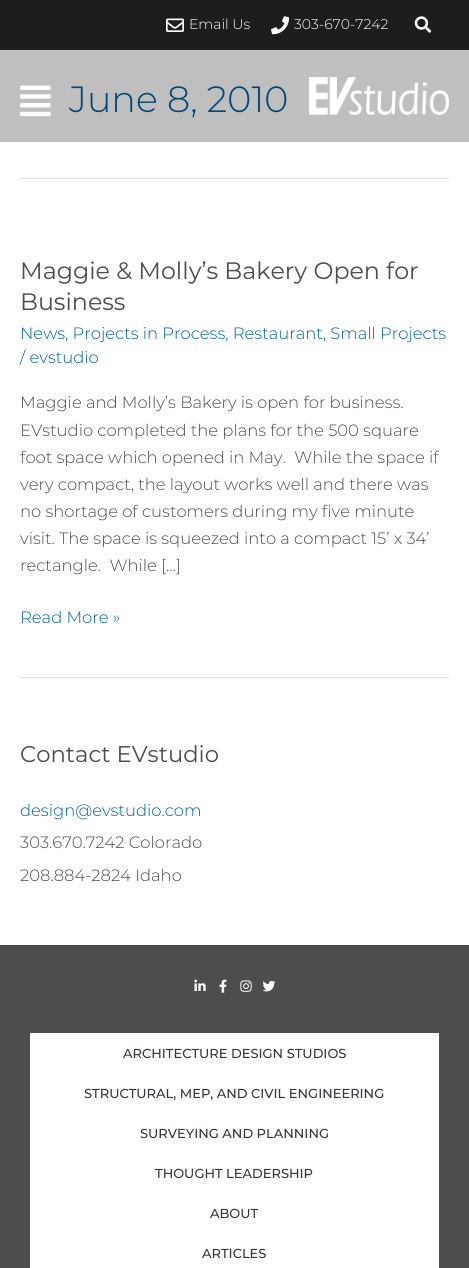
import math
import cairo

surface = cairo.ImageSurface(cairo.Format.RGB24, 469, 1268)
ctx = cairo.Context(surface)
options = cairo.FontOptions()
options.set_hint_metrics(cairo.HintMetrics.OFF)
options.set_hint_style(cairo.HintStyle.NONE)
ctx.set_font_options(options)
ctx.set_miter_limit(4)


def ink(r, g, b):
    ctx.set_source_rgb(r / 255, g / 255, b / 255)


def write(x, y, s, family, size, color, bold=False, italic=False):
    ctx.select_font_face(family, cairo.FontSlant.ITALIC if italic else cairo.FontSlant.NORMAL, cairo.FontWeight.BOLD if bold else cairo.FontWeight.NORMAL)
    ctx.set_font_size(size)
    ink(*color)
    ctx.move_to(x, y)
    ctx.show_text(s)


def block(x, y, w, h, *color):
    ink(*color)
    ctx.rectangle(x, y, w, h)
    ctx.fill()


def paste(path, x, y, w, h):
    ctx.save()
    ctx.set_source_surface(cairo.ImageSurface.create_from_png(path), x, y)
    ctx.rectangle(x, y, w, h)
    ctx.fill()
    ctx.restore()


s1 = dict(family="Montserrat Light", size=14, color=(255, 255, 255))
s2 = dict(family="Montserrat Light", size=36.5, color=(0, 72, 117))
s3 = dict(family="Montserrat", size=23.75, color=(77, 77, 79))
s4 = dict(family="Montserrat Light", size=16.4, color=(0, 96, 156))
s5 = dict(family="Montserrat Light", size=16.4, color=(77, 77, 79))
s6 = dict(family="Montserrat", size=22.75, color=(77, 77, 79))
s7 = dict(family="Montserrat Medium", size=13, color=(51, 55, 61))

ink(255, 255, 255)
ctx.paint()
block(0, 50, 469, 92, 191, 191, 191)
block(0, 0, 469, 50, 29, 29, 30)
paste("pic1.png", 166, 18, 18, 14)
write(189, 29, "Email Us", **s1)
paste("pic2.png", 271, 16, 18, 19)
write(294, 29, "303-670-7242", **s1)
paste("pic3.png", 414, 16, 18, 17)
paste("pic4.png", 20, 85, 31, 32)
paste("pic5.png", 309, 77, 140, 38)
block(20, 178, 429, 1, 221, 221, 221)
write(69, 112, "June 8, 2010", **s2)
block(20, 677, 429, 1, 221, 221, 221)
write(20, 279, "Maggie & Molly’s Bakery Open for", **s3)
write(20, 310, "Business", **s3)
write(20, 339, "News, Projects in Process, Restaurant, Small Projects", **s4)
write(20, 363, "/ evstudio", **s4)
write(20, 408, "Maggie and Molly’s Bakery is open for business.", **s5)
write(20, 436, "EVstudio completed the plans for the 500 square", **s5)
write(20, 463, "foot space which opened in May.  While the space if", **s5)
write(20, 490, "very compact, the layout works well and there was", **s5)
write(20, 517, "no shortage of customers during my five minute", **s5)
write(20, 544, "visit. The space is squeezed into a compact 15’ x 34’", **s5)
write(20, 571, "rectangle.  While […]", **s5)
write(20, 623, "Read More »", **s4)
write(20, 762, "Contact EVstudio", **s6)
write(20, 816, "design@evstudio.com", **s4)
write(20, 848, "303.670.7242 Colorado", **s5)
write(20, 881, "208.884-2824 Idaho", **s5)
block(0, 945, 469, 323, 77, 77, 77)
paste("pic6.png", 194, 979, 12, 12)
paste("pic7.png", 219, 979, 8, 14)
paste("pic8.png", 240, 980, 12, 12)
paste("pic9.png", 262, 980, 14, 12)
block(30, 1033, 409, 235, 255, 255, 255)
write(123, 1058, "ARCHITECTURE DESIGN STUDIOS", **s7)
write(84, 1098, "STRUCTURAL, MEP, AND CIVIL ENGINEERING", **s7)
write(140, 1138, "SURVEYING AND PLANNING", **s7)
write(155, 1178, "THOUGHT LEADERSHIP", **s7)
write(210, 1218, "ABOUT", **s7)
write(202, 1258, "ARTICLES", **s7)
surface.write_to_png("screenshot.png")
